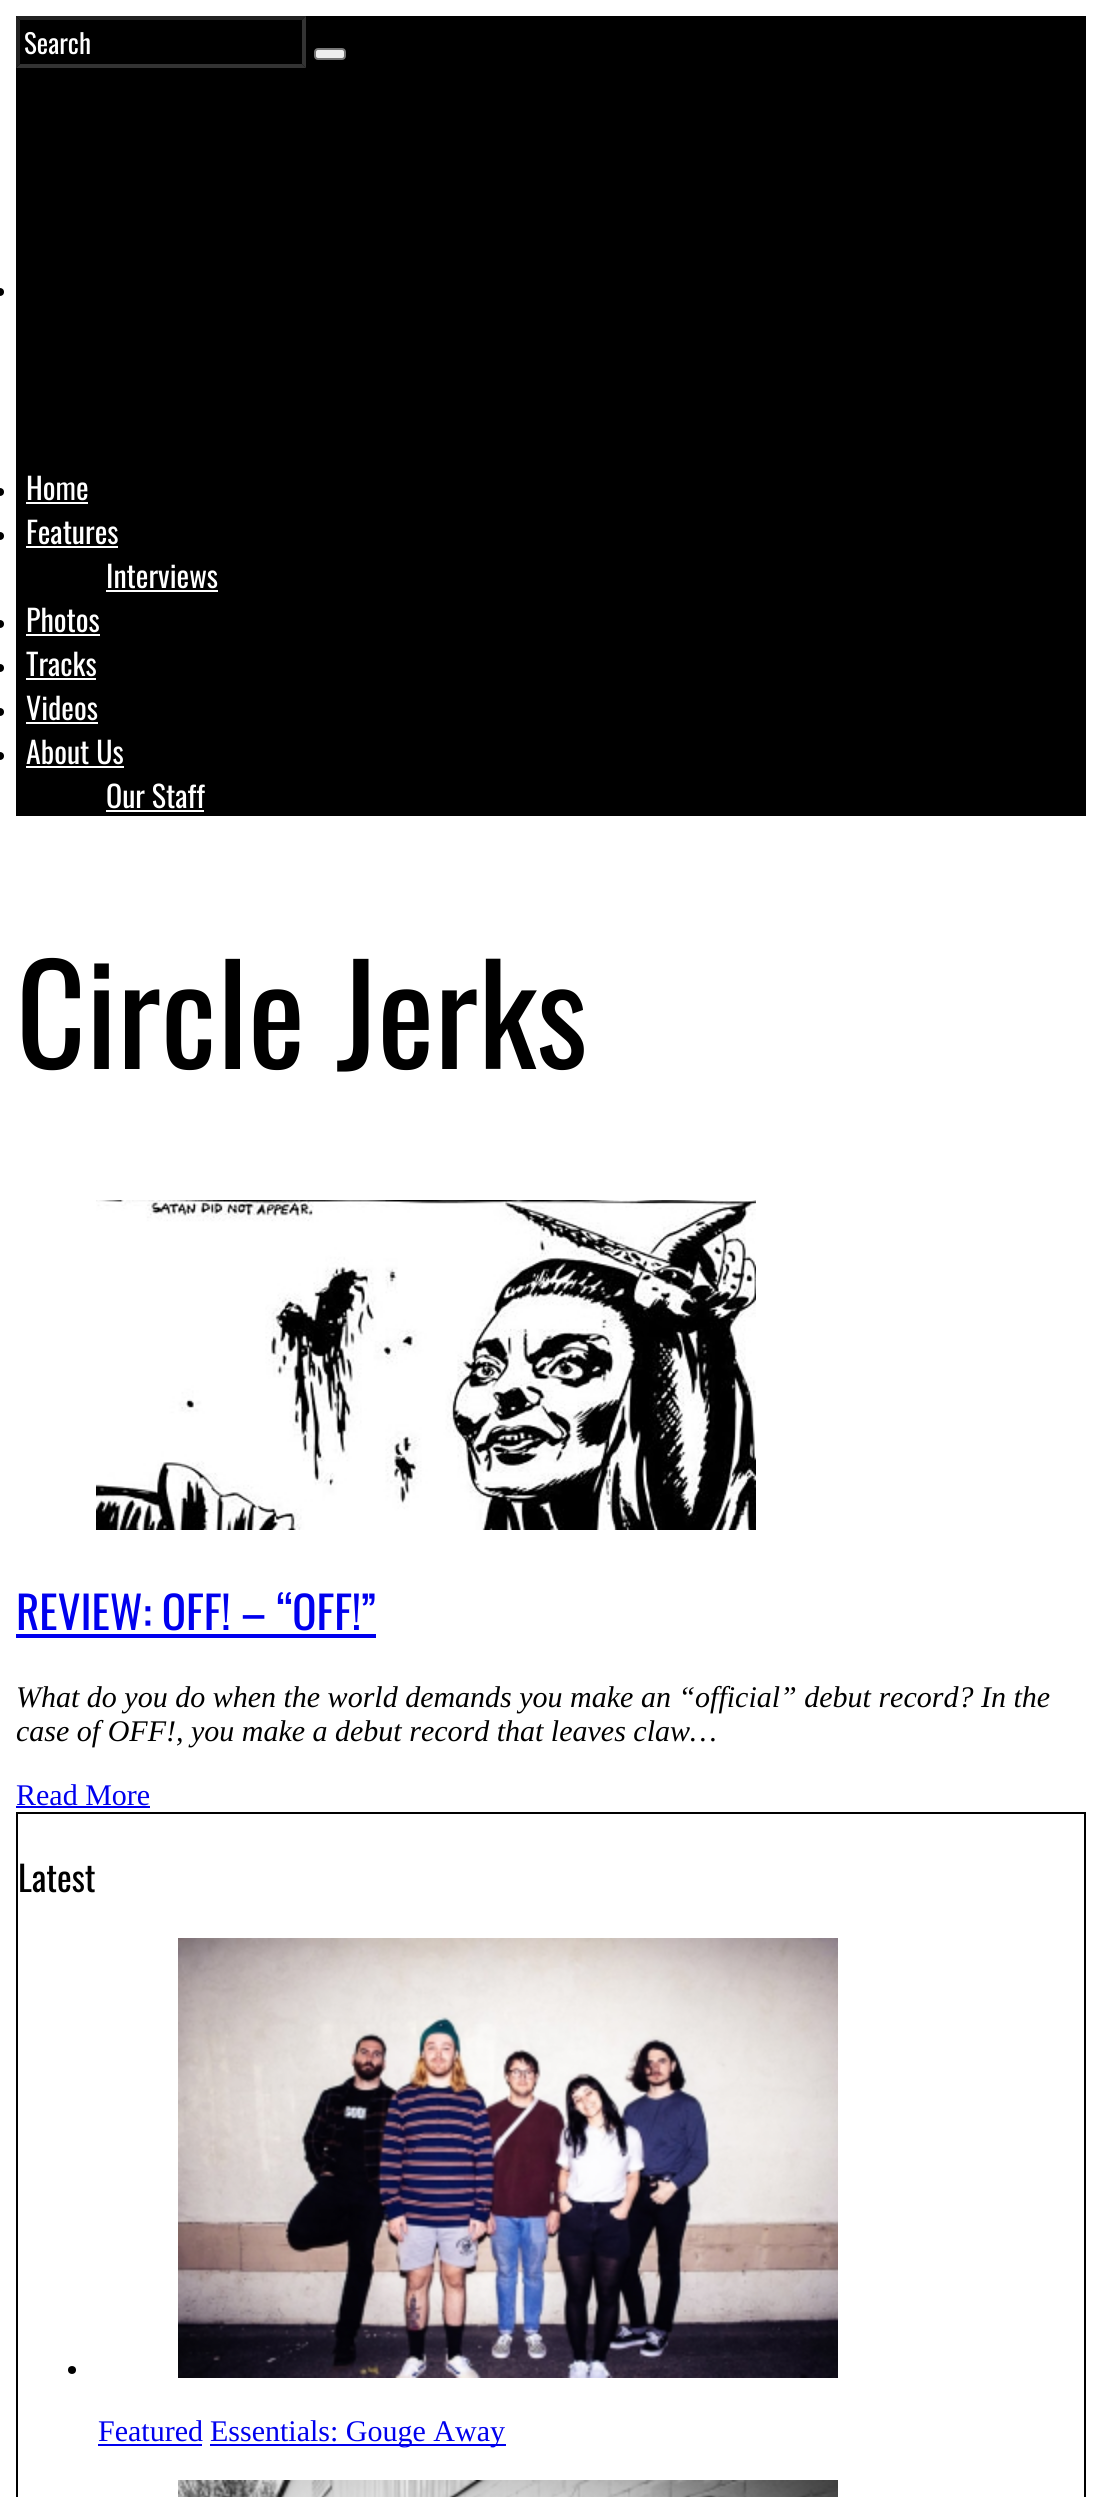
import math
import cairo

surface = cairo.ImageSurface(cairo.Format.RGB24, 1101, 2497)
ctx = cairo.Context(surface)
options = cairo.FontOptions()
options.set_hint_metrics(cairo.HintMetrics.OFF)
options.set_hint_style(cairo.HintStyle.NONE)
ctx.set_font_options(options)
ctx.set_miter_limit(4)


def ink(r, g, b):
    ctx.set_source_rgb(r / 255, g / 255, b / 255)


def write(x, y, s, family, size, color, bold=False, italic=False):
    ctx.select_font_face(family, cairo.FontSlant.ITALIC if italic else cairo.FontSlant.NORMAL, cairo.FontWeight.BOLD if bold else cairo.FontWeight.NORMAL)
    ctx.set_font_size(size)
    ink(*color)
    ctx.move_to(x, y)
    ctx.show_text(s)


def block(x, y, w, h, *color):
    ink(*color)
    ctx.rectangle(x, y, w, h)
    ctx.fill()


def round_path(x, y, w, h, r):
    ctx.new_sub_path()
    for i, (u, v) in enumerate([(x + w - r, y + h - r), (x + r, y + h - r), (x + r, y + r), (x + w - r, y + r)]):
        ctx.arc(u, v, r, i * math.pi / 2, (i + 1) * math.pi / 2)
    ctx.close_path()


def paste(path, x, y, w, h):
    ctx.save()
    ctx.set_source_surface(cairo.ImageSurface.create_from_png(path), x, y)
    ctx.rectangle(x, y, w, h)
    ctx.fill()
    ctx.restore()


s1 = dict(family="Oswald", size=27, color=(255, 255, 255))
s2 = dict(family="Oswald", size=30, color=(255, 255, 255))
s3 = dict(family="Oswald", size=136, color=(0, 0, 0))
s4 = dict(family="Oswald", size=45, color=(0, 0, 238))
s5 = dict(family="Liberation Serif", size=30, color=(0, 0, 0), italic=True)
s6 = dict(family="Liberation Serif", size=30, color=(0, 0, 238))
s7 = dict(family="Oswald", size=35, color=(0, 0, 0))

ink(255, 255, 255)
ctx.paint()
block(16, 16, 1070, 800, 0, 0, 0)
ink(34, 34, 34)
ctx.new_path()
ctx.move_to(16, 16)
ctx.line_to(306, 16)
ctx.line_to(302, 20)
ctx.line_to(20, 20)
ctx.close_path()
ctx.fill()
ink(51, 51, 51)
ctx.new_path()
ctx.move_to(306, 16)
ctx.line_to(306, 68)
ctx.line_to(302, 64)
ctx.line_to(302, 20)
ctx.close_path()
ctx.fill()
ctx.new_path()
ctx.move_to(306, 68)
ctx.line_to(16, 68)
ctx.line_to(20, 64)
ctx.line_to(302, 64)
ctx.close_path()
ctx.fill()
ink(34, 34, 34)
ctx.new_path()
ctx.move_to(16, 68)
ctx.line_to(16, 16)
ctx.line_to(20, 20)
ctx.line_to(20, 64)
ctx.close_path()
ctx.fill()
write(24, 54, "Search", **s1)
ink(239, 239, 239)
round_path(315, 49, 30, 10, 3)
ctx.fill_preserve()
ink(118, 118, 118)
ctx.stroke()
ink(0, 0, 0)
ctx.arc(0, 292, 4, 0, 2 * math.pi)
ctx.fill()
ctx.arc(0, 492, 4, 0, 2 * math.pi)
ctx.fill()
write(26, 500, "Home", **s2)
block(26, 502, 62, 2, 255, 255, 255)
ink(0, 0, 0)
ctx.new_path()
ctx.arc(0, 536, 4, 0, 2 * math.pi)
ctx.fill()
write(26, 544, "Features", **s2)
block(26, 546, 92, 2, 255, 255, 255)
write(106, 588, "Interviews", **s2)
block(106, 590, 112, 2, 255, 255, 255)
ink(0, 0, 0)
ctx.new_path()
ctx.arc(0, 624, 4, 0, 2 * math.pi)
ctx.fill()
write(26, 632, "Photos", **s2)
block(26, 634, 74, 2, 255, 255, 255)
ink(0, 0, 0)
ctx.new_path()
ctx.arc(0, 668, 4, 0, 2 * math.pi)
ctx.fill()
write(26, 676, "Tracks", **s2)
block(26, 678, 70, 2, 255, 255, 255)
ink(0, 0, 0)
ctx.new_path()
ctx.arc(0, 712, 4, 0, 2 * math.pi)
ctx.fill()
write(26, 720, "Videos", **s2)
block(26, 722, 72, 2, 255, 255, 255)
ink(0, 0, 0)
ctx.new_path()
ctx.arc(0, 756, 4, 0, 2 * math.pi)
ctx.fill()
write(26, 764, "About Us", **s2)
block(26, 766, 98, 2, 255, 255, 255)
write(106, 808, "Our Staff", **s2)
block(106, 810, 98, 2, 255, 255, 255)
write(16, 1069, "Circle Jerks", **s3)
paste("pic1.png", 96, 1200, 660, 330)
write(16, 1630, "REVIEW: OFF! – “OFF!”", **s4)
block(16, 1634, 360, 4, 0, 0, 238)
write(16, 1707, "What do you do when the world demands you make an “official” debut record? In the", **s5)
write(16, 1741, "case of OFF!, you make a debut record that leaves claw…", **s5)
write(16, 1805, "Read More", **s6)
block(16, 1806, 134, 2, 0, 0, 238)
ctx.rectangle(17, 1813, 1068, 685)
ink(0, 0, 0)
ctx.stroke()
write(18, 1892, "Latest", **s7)
ctx.new_path()
ctx.arc(72, 2370, 4, 0, 2 * math.pi)
ctx.fill()
paste("pic2.png", 178, 1938, 660, 440)
write(98, 2441, "Featured", **s6)
block(98, 2444, 104, 2, 0, 0, 238)
block(210, 2444, 296, 2, 0, 0, 238)
write(210, 2441, "Essentials: Gouge Away", **s6)
paste("pic3.png", 178, 2480, 660, 17)
surface.write_to_png("screenshot.png")
